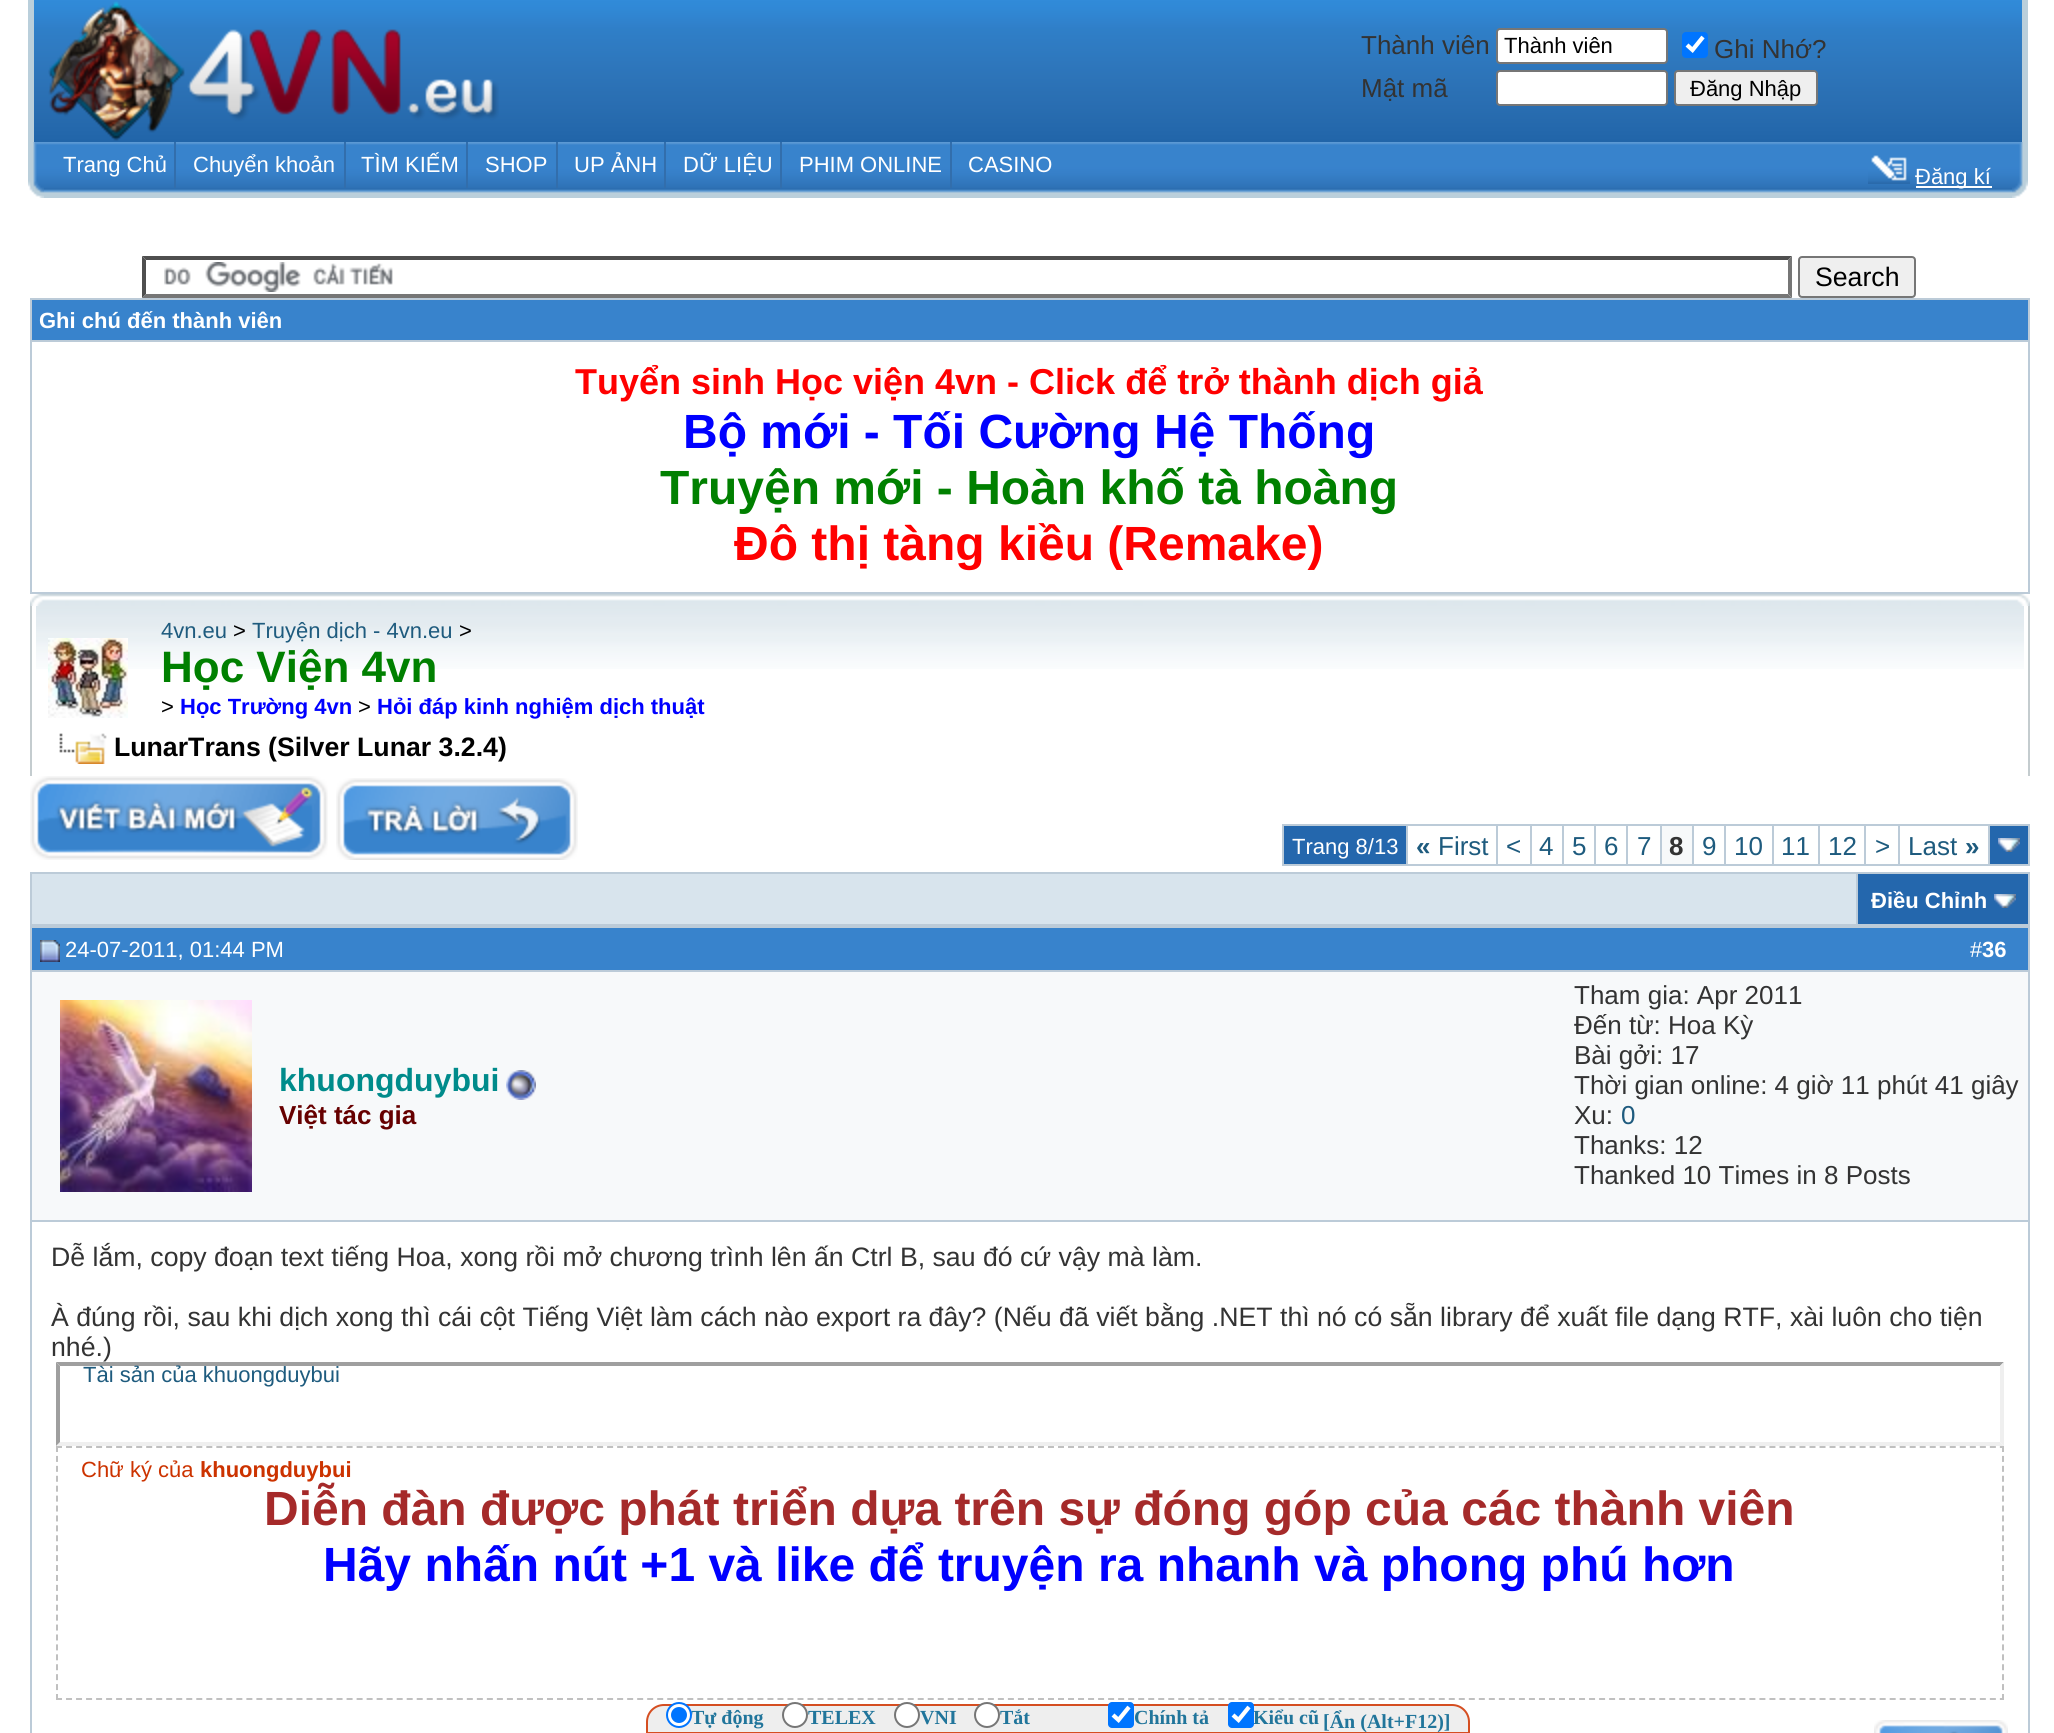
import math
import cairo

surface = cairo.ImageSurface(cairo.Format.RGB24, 2054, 1733)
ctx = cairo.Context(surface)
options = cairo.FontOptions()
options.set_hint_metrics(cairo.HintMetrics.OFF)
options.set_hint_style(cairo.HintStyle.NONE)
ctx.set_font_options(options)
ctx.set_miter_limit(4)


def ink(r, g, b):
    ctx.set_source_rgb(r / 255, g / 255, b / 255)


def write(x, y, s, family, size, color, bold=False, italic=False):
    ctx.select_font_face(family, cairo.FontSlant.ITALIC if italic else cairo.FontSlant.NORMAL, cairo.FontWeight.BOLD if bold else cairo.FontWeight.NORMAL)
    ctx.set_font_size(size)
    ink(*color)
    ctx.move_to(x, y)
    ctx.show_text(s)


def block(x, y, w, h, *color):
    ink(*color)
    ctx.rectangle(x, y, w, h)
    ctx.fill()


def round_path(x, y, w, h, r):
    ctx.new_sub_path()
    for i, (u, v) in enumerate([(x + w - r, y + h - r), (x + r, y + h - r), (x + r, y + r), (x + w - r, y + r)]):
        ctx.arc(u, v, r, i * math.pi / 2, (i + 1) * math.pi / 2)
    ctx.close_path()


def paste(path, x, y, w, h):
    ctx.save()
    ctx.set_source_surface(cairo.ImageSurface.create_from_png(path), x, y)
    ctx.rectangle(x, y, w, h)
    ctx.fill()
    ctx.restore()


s1 = dict(family="Liberation Sans", size=26, color=(51, 51, 51))
s2 = dict(family="Liberation Sans", size=22, color=(0, 0, 0))
s3 = dict(family="Liberation Sans", size=22, color=(255, 255, 255))
s4 = dict(family="Liberation Sans", size=26.67, color=(0, 0, 0))
s5 = dict(family="Liberation Sans", size=22, color=(255, 255, 255), bold=True)
s6 = dict(family="Liberation Sans", size=36, color=(255, 0, 0), bold=True)
s7 = dict(family="Liberation Sans", size=48, color=(0, 0, 255), bold=True)
s8 = dict(family="Liberation Sans", size=48, color=(0, 128, 0), bold=True)
s9 = dict(family="Liberation Sans", size=48, color=(255, 0, 0), bold=True)
s10 = dict(family="Liberation Sans", size=22, color=(30, 91, 126))
s11 = dict(family="Liberation Sans", size=44, color=(0, 128, 0), bold=True)
s12 = dict(family="Liberation Sans", size=22, color=(0, 0, 255), bold=True)
s13 = dict(family="Liberation Sans", size=26.67, color=(0, 0, 0), bold=True)
s14 = dict(family="Liberation Sans", size=26, color=(30, 91, 126), bold=True)
s15 = dict(family="Liberation Sans", size=26, color=(30, 91, 126))
s16 = dict(family="Liberation Sans", size=26, color=(51, 51, 51), bold=True)
s17 = dict(family="Liberation Sans", size=32, color=(0, 139, 139), bold=True)
s18 = dict(family="Liberation Sans", size=26, color=(102, 0, 0), bold=True)
s19 = dict(family="Liberation Sans", size=26.67, color=(51, 51, 51))
s20 = dict(family="Liberation Sans", size=22, color=(204, 51, 0))
s21 = dict(family="Liberation Sans", size=22, color=(204, 51, 0), bold=True)
s22 = dict(family="Liberation Sans", size=48, color=(165, 42, 42), bold=True)
s23 = dict(family="Liberation Serif", size=20, color=(33, 117, 155), bold=True)

ink(255, 255, 255)
ctx.paint()
paste("pic1.png", 34, 0, 1988, 142)
write(1361, 54, "Thành viên", **s1)
ink(255, 255, 255)
round_path(1497, 29, 170, 34, 3)
ctx.fill_preserve()
ink(118, 118, 118)
ctx.stroke()
write(1504, 53, "Thành viên", **s2)
ink(0, 117, 255)
round_path(1682, 32, 26, 26, 4)
ctx.fill()
ctx.new_path()
ctx.move_to(1687, 45)
ctx.line_to(1692.5, 50)
ctx.line_to(1703, 37)
ink(255, 255, 255)
ctx.set_line_width(4.2)
ctx.stroke()
write(1714, 58, "Ghi Nhớ?", **s1)
write(1361, 97, "Mật mã", **s1)
ink(255, 255, 255)
round_path(1497, 71, 170, 34, 3)
ctx.fill_preserve()
ink(118, 118, 118)
ctx.set_line_width(2)
ctx.stroke()
ink(239, 239, 239)
round_path(1675, 71, 142, 34, 3)
ctx.fill_preserve()
ink(118, 118, 118)
ctx.stroke()
write(1690, 96, "Ðăng Nhập", **s2)
block(2022, 0, 6, 142, 186, 207, 219)
block(28, 0, 6, 142, 186, 207, 219)
paste("pic2.png", 48, 1, 451, 140)
paste("pic3.png", 28, 142, 16, 56)
paste("pic4.png", 44, 142, 1968, 56)
write(63, 172, "Trang Chủ", **s3)
block(174, 142, 2, 46, 50, 110, 172)
write(193, 172, "Chuyển khoản", **s3)
block(344, 142, 2, 46, 50, 110, 172)
write(361, 172, "TÌM KIẾM", **s3)
block(466, 142, 2, 46, 50, 110, 172)
write(485, 172, "SHOP", **s3)
block(556, 142, 2, 46, 50, 110, 172)
write(574, 172, "UP ẢNH", **s3)
block(664, 142, 2, 46, 50, 110, 172)
write(683, 172, "DỮ LIỆU", **s3)
block(780, 142, 2, 46, 50, 110, 172)
write(799, 172, "PHIM ONLINE", **s3)
block(950, 142, 2, 46, 50, 110, 172)
write(968, 172, "CASINO", **s3)
paste("pic5.png", 1868, 155, 42, 29)
block(1916, 186, 76, 2, 255, 255, 255)
write(1915, 184, "Đăng kí", **s3)
paste("pic6.png", 2012, 142, 16, 56)
paste("pic7.png", 164, 262, 229, 30)
ink(79, 79, 79)
ctx.new_path()
ctx.move_to(142, 256)
ctx.line_to(1792, 256)
ctx.line_to(1788, 260)
ctx.line_to(146, 260)
ctx.close_path()
ctx.fill()
ink(118, 118, 118)
ctx.new_path()
ctx.move_to(1792, 256)
ctx.line_to(1792, 298)
ctx.line_to(1788, 294)
ctx.line_to(1788, 260)
ctx.close_path()
ctx.fill()
ctx.new_path()
ctx.move_to(1792, 298)
ctx.line_to(142, 298)
ctx.line_to(146, 294)
ctx.line_to(1788, 294)
ctx.close_path()
ctx.fill()
ink(79, 79, 79)
ctx.new_path()
ctx.move_to(142, 298)
ctx.line_to(142, 256)
ctx.line_to(146, 260)
ctx.line_to(146, 294)
ctx.close_path()
ctx.fill()
ink(239, 239, 239)
round_path(1799, 257, 116, 40, 3)
ctx.fill_preserve()
ink(118, 118, 118)
ctx.stroke()
write(1815, 286, "Search", **s4)
block(30, 298, 2000, 296, 188, 203, 216)
block(32, 300, 1996, 40, 56, 131, 204)
write(39, 328, "Ghi chú đến thành viên", **s5)
block(32, 342, 1996, 250, 255, 255, 255)
write(575, 394, "Tuyển sinh Học viện 4vn - Click để trở thành dịch giả", **s6)
write(683, 448, "Bộ mới - Tối Cường Hệ Thống", **s7)
write(660, 504, "Truyện mới - Hoàn khố tà hoàng", **s8)
write(734, 560, "Đô thị tàng kiều (Remake)", **s9)
paste("pic8.png", 30, 594, 2000, 12)
block(2028, 606, 2, 170, 196, 204, 207)
block(30, 606, 2, 170, 196, 204, 207)
paste("pic9.png", 36, 606, 1988, 63)
paste("pic10.png", 48, 638, 80, 80)
write(161, 638, "4vn.eu", **s10)
write(252, 638, "Truyện dịch - 4vn.eu", **s10)
write(459, 638, ">", **s2)
write(161, 682, "Học Viện 4vn", **s11)
write(233, 638, ">", **s2)
write(161, 714, ">", **s2)
write(180, 714, "Học Trường 4vn", **s12)
write(358, 714, ">", **s2)
write(377, 714, "Hỏi đáp kinh nghiệm dịch thuật", **s12)
paste("pic11.png", 59, 733, 48, 31)
write(114, 756, "LunarTrans (Silver Lunar 3.2.4)", **s13)
paste("pic12.png", 30, 776, 298, 84)
paste("pic13.png", 336, 778, 242, 82)
block(1282, 824, 748, 42, 188, 203, 216)
block(1284, 826, 122, 38, 36, 103, 173)
write(1292, 854, "Trang 8/13", **s3)
block(1408, 826, 88, 38, 255, 255, 255)
write(1416, 855, "«", **s14)
write(1438, 855, "First", **s15)
block(1498, 826, 32, 38, 255, 255, 255)
write(1506, 855, "<", **s15)
block(1532, 826, 30, 38, 255, 255, 255)
write(1539, 855, "4", **s15)
block(1564, 826, 30, 38, 255, 255, 255)
write(1572, 855, "5", **s15)
block(1596, 826, 30, 38, 255, 255, 255)
write(1604, 855, "6", **s15)
block(1628, 826, 32, 38, 255, 255, 255)
write(1637, 855, "7", **s15)
block(1662, 826, 30, 38, 247, 249, 250)
write(1669, 855, "8", **s16)
block(1694, 826, 30, 38, 255, 255, 255)
write(1702, 855, "9", **s15)
block(1726, 826, 46, 38, 255, 255, 255)
write(1734, 855, "10", **s15)
block(1774, 826, 44, 38, 255, 255, 255)
write(1781, 855, "11", **s15)
block(1820, 826, 44, 38, 255, 255, 255)
write(1828, 855, "12", **s15)
block(1866, 826, 32, 38, 255, 255, 255)
write(1875, 855, ">", **s15)
block(1900, 826, 88, 38, 255, 255, 255)
write(1908, 855, "Last", **s15)
write(1965, 855, "»", **s14)
block(1990, 826, 38, 38, 36, 103, 173)
paste("pic14.png", 1998, 838, 22, 14)
block(30, 872, 2000, 861, 188, 203, 216)
block(32, 874, 1824, 50, 216, 228, 237)
block(1858, 874, 170, 50, 36, 103, 173)
write(1871, 908, "Ðiều Chỉnh", **s5)
paste("pic14.png", 1994, 894, 22, 14)
block(32, 928, 1996, 42, 56, 131, 204)
paste("pic15.png", 40, 940, 20, 22)
write(65, 957, "24-07-2011, 01:44 PM", **s3)
write(1970, 957, "#", **s3)
write(1982, 957, "36", **s5)
block(32, 972, 1996, 248, 247, 249, 250)
paste("pic16.png", 60, 1000, 192, 192)
write(279, 1091, "khuongduybui", **s17)
paste("pic17.png", 506, 1070, 30, 30)
write(279, 1124, "Việt tác gia", **s18)
write(1574, 1004, "Tham gia: Apr 2011", **s1)
write(1574, 1034, "Đến từ: Hoa Kỳ", **s1)
write(1574, 1064, "Bài gởi: 17", **s1)
write(1574, 1094, "Thời gian online: 4 giờ 11 phút 41 giây", **s1)
write(1574, 1124, "Xu:", **s1)
write(1621, 1124, "0", **s15)
write(1574, 1154, "Thanks: 12", **s1)
write(1574, 1184, "Thanked 10 Times in 8 Posts", **s1)
block(32, 1222, 1996, 511, 255, 255, 255)
write(51, 1266, "Dễ lắm, copy đoạn text tiếng Hoa, xong rồi mở chương trình lên ấn Ctrl B, sau đó cứ vậy mà làm.", **s19)
write(51, 1326, "À đúng rồi, sau khi dịch xong thì cái cột Tiếng Việt làm cách nào export ra đây? (Nếu đã viết bằng .NET thì nó có sẵn library để xuất file dạng RTF, xài luôn cho tiện", **s19)
write(51, 1356, "nhé.)", **s19)
ink(159, 159, 159)
ctx.new_path()
ctx.move_to(56, 1362)
ctx.line_to(2004, 1362)
ctx.line_to(2000, 1366)
ctx.line_to(60, 1366)
ctx.close_path()
ctx.fill()
ink(239, 239, 239)
ctx.new_path()
ctx.move_to(2004, 1362)
ctx.line_to(2004, 1446)
ctx.line_to(2000, 1442)
ctx.line_to(2000, 1366)
ctx.close_path()
ctx.fill()
ctx.new_path()
ctx.move_to(2004, 1446)
ctx.line_to(56, 1446)
ctx.line_to(60, 1442)
ctx.line_to(2000, 1442)
ctx.close_path()
ctx.fill()
ink(159, 159, 159)
ctx.new_path()
ctx.move_to(56, 1446)
ctx.line_to(56, 1362)
ctx.line_to(60, 1366)
ctx.line_to(60, 1442)
ctx.close_path()
ctx.fill()
write(83, 1382, "Tài sản của khuongduybui", **s10)
ctx.new_path()
ctx.move_to(56, 1447)
ctx.line_to(2004, 1447)
ink(192, 192, 192)
ctx.set_dash([6, 4.02])
ctx.stroke()
ctx.new_path()
ctx.move_to(2003, 1446)
ctx.line_to(2003, 1700)
ctx.set_dash([6, 3.92])
ctx.stroke()
ctx.new_path()
ctx.move_to(56, 1699)
ctx.line_to(2004, 1699)
ctx.set_dash([6, 4.02])
ctx.stroke()
ctx.new_path()
ctx.move_to(57, 1446)
ctx.line_to(57, 1700)
ctx.set_dash([6, 3.92])
ctx.stroke()
write(81, 1477, "Chữ ký của", **s20)
write(200, 1477, "khuongduybui", **s21)
write(264, 1525, "Diễn đàn được phát triển dựa trên sự đóng góp của các thành viên", **s22)
write(323, 1581, "Hãy nhấn nút +1 và like để truyện ra nhanh và phong phú hơn", **s7)
paste("pic18.png", 1874, 1720, 134, 13)
ink(238, 238, 238)
ctx.new_path()
ctx.move_to(664, 1705)
ctx.line_to(1452, 1705)
ctx.curve_to(1461.5, 1705, 1469, 1712.5, 1469, 1722)
ctx.line_to(1469, 1733)
ctx.line_to(647, 1733)
ctx.line_to(647, 1722)
ctx.curve_to(647, 1712.5, 654.5, 1705, 664, 1705)
ctx.close_path()
ctx.fill_preserve()
ink(213, 78, 33)
ctx.set_dash([])
ctx.stroke()
write(691, 1724, "Tự động", **s23)
ink(255, 255, 255)
ctx.new_path()
ctx.arc(679, 1715, 12, 0, 2 * math.pi)
ctx.fill_preserve()
ink(0, 117, 255)
ctx.stroke()
ctx.arc(679, 1715, 8, 0, 2 * math.pi)
ctx.fill()
ink(255, 255, 255)
ctx.arc(795, 1715, 12, 0, 2 * math.pi)
ctx.fill_preserve()
ink(118, 118, 118)
ctx.stroke()
write(808, 1724, "TELEX", **s23)
write(920, 1724, "VNI", **s23)
ink(255, 255, 255)
ctx.new_path()
ctx.arc(907, 1715, 12, 0, 2 * math.pi)
ctx.fill_preserve()
ink(118, 118, 118)
ctx.stroke()
ink(255, 255, 255)
ctx.arc(987, 1715, 12, 0, 2 * math.pi)
ctx.fill_preserve()
ink(118, 118, 118)
ctx.stroke()
write(1000, 1724, "Tắt", **s23)
ink(0, 117, 255)
round_path(1108, 1702, 26, 26, 4)
ctx.fill()
ctx.new_path()
ctx.move_to(1113, 1715)
ctx.line_to(1118.5, 1720)
ctx.line_to(1129, 1707)
ink(255, 255, 255)
ctx.set_line_width(4.2)
ctx.stroke()
write(1134, 1724, "Chính tả", **s23)
write(1253, 1724, "Kiểu cũ", **s23)
ink(0, 117, 255)
round_path(1228, 1702, 26, 26, 4)
ctx.fill()
ctx.new_path()
ctx.move_to(1233, 1715)
ctx.line_to(1238.5, 1720)
ctx.line_to(1249, 1707)
ink(255, 255, 255)
ctx.stroke()
write(1323, 1728, "[Ẩn (Alt+F12)]", **s23)
surface.write_to_png("screenshot.png")
